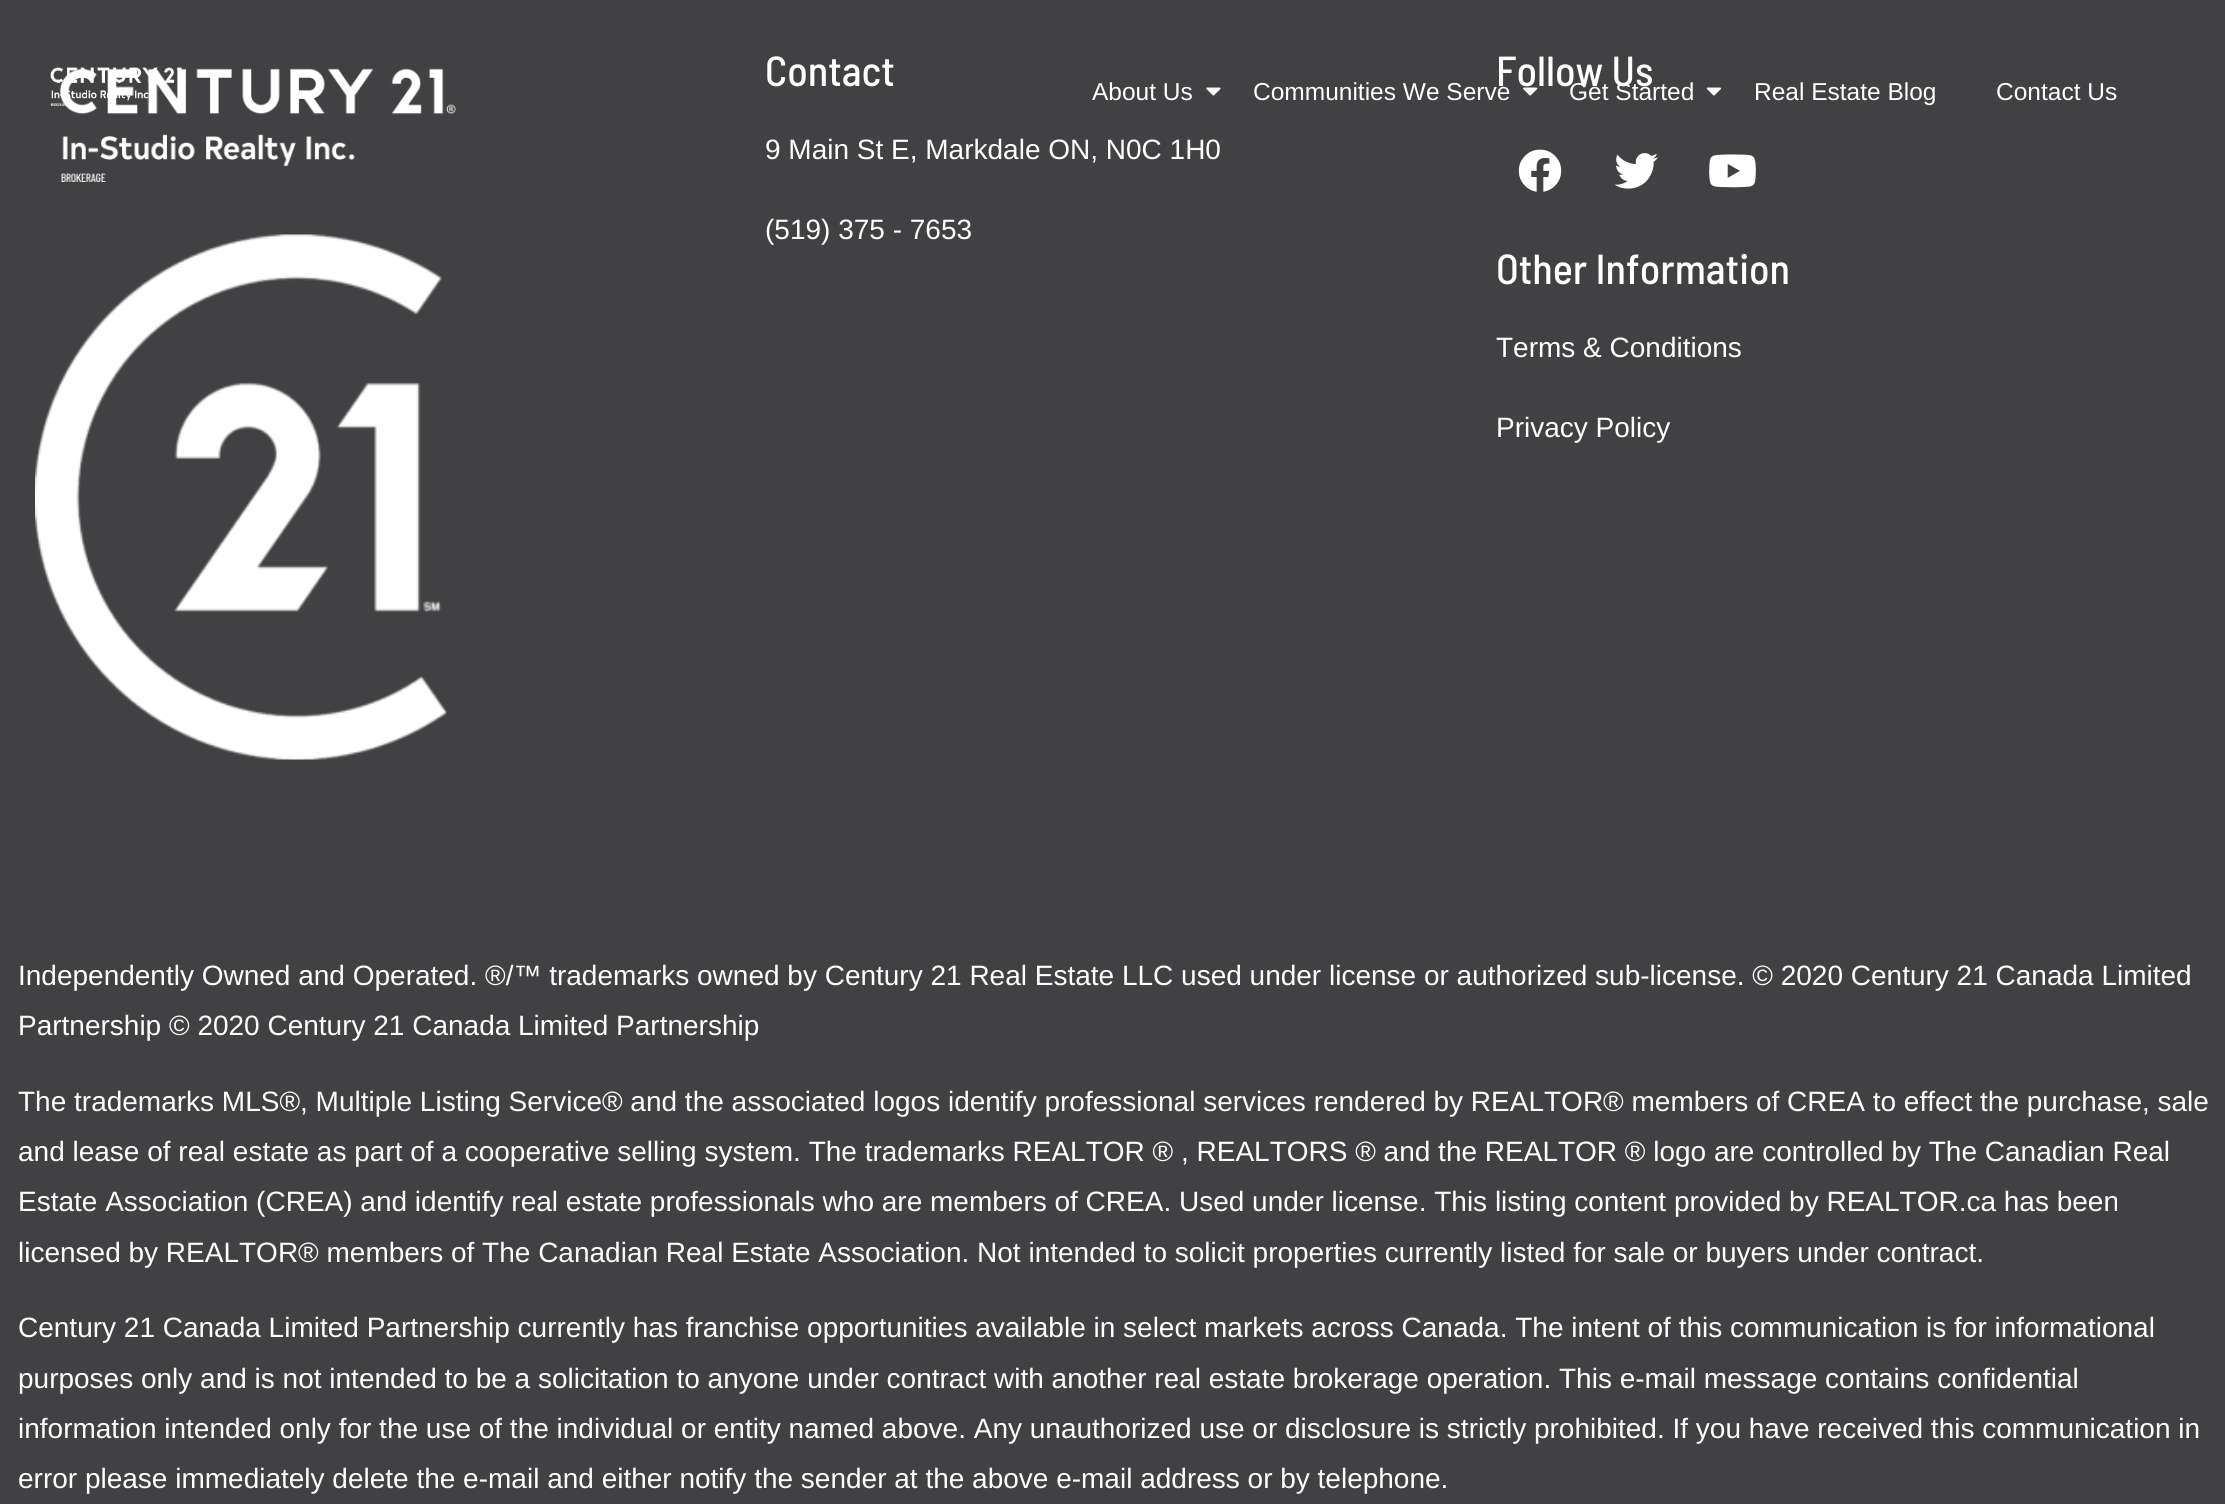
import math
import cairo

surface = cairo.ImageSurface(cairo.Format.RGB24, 2225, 1504)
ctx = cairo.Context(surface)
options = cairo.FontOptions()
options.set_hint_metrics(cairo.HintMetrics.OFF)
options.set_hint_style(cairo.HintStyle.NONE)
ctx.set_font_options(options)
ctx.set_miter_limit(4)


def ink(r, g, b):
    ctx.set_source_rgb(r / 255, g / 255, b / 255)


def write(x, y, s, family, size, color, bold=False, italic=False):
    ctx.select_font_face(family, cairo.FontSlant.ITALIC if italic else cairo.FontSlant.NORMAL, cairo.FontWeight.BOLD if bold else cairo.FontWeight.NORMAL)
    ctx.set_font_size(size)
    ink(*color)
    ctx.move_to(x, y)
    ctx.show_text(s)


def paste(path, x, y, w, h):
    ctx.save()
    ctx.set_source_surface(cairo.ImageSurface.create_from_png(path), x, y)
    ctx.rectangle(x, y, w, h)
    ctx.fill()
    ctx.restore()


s1 = dict(family="Barlow Semi Condensed Medium", size=42, color=(255, 255, 255))
s2 = dict(family="Liberation Sans", size=28, color=(255, 255, 255))
s3 = dict(family="Liberation Sans", size=24.5, color=(255, 255, 255))

ink(65, 64, 66)
ctx.paint()
paste("pic1.png", 59, 68, 397, 114)
paste("pic2.png", 35, 234, 412, 526)
write(765, 86, "Contact", **s1)
write(765, 159, "9 Main St E, Markdale ON, N0C 1H0", **s2)
write(765, 239, "(519) 375 - 7653", **s2)
write(1496, 86, "Follow Us", **s1)
paste("pic3.png", 1518, 149, 44, 43)
paste("pic4.png", 1614, 153, 44, 36)
paste("pic5.png", 1709, 154, 47, 34)
write(1496, 284, "Other Information", **s1)
write(1496, 357, "Terms & Conditions", **s2)
write(1496, 437, "Privacy Policy", **s2)
write(18, 985, "Independently Owned and Operated. ®/™ trademarks owned by Century 21 Real Estate LLC used under license or authorized sub-license. © 2020 Century 21 Canada Limited", **s2)
write(18, 1035, "Partnership © 2020 Century 21 Canada Limited Partnership", **s2)
write(18, 1111, "The trademarks MLS®, Multiple Listing Service® and the associated logos identify professional services rendered by REALTOR® members of CREA to effect the purchase, sale", **s2)
write(18, 1161, "and lease of real estate as part of a cooperative selling system. The trademarks REALTOR ® , REALTORS ® and the REALTOR ® logo are controlled by The Canadian Real", **s2)
write(18, 1211, "Estate Association (CREA) and identify real estate professionals who are members of CREA. Used under license. This listing content provided by REALTOR.ca has been", **s2)
write(18, 1262, "licensed by REALTOR® members of The Canadian Real Estate Association. Not intended to solicit properties currently listed for sale or buyers under contract.", **s2)
write(18, 1337, "Century 21 Canada Limited Partnership currently has franchise opportunities available in select markets across Canada. The intent of this communication is for informational", **s2)
write(18, 1388, "purposes only and is not intended to be a solicitation to anyone under contract with another real estate brokerage operation. This e-mail message contains confidential", **s2)
write(18, 1438, "information intended only for the use of the individual or entity named above. Any unauthorized use or disclosure is strictly prohibited. If you have received this communication in", **s2)
write(18, 1488, "error please immediately delete the e-mail and either notify the sender at the above e-mail address or by telephone.", **s2)
paste("pic6.png", 50, 67, 136, 39)
write(1092, 100, "About Us", **s3)
paste("pic7.png", 1206, 87, 15, 9)
write(1253, 100, "Communities We Serve", **s3)
paste("pic8.png", 1523, 87, 15, 9)
write(1569, 100, "Get Started", **s3)
paste("pic9.png", 1706, 87, 15, 9)
write(1754, 100, "Real Estate Blog", **s3)
write(1996, 100, "Contact Us", **s3)
surface.write_to_png("screenshot.png")
